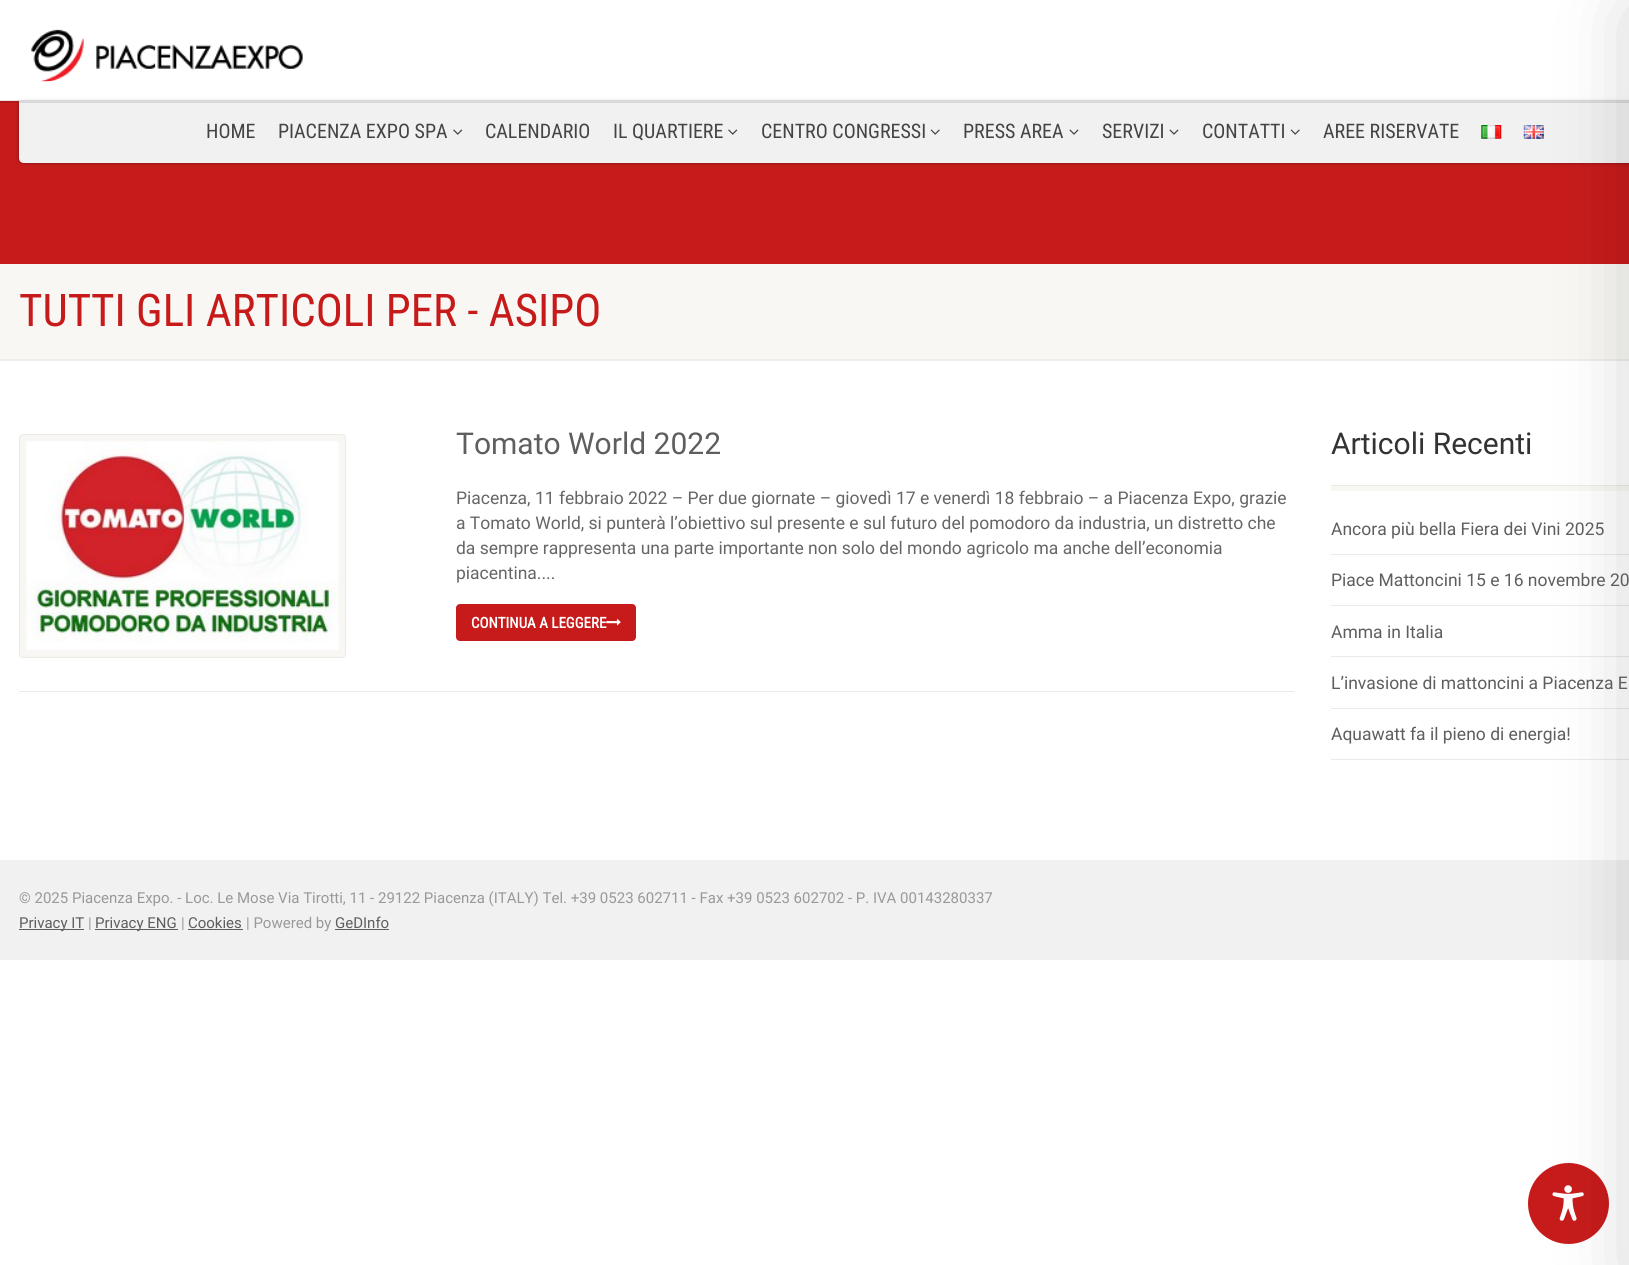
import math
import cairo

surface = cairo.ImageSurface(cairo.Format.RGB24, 1629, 1265)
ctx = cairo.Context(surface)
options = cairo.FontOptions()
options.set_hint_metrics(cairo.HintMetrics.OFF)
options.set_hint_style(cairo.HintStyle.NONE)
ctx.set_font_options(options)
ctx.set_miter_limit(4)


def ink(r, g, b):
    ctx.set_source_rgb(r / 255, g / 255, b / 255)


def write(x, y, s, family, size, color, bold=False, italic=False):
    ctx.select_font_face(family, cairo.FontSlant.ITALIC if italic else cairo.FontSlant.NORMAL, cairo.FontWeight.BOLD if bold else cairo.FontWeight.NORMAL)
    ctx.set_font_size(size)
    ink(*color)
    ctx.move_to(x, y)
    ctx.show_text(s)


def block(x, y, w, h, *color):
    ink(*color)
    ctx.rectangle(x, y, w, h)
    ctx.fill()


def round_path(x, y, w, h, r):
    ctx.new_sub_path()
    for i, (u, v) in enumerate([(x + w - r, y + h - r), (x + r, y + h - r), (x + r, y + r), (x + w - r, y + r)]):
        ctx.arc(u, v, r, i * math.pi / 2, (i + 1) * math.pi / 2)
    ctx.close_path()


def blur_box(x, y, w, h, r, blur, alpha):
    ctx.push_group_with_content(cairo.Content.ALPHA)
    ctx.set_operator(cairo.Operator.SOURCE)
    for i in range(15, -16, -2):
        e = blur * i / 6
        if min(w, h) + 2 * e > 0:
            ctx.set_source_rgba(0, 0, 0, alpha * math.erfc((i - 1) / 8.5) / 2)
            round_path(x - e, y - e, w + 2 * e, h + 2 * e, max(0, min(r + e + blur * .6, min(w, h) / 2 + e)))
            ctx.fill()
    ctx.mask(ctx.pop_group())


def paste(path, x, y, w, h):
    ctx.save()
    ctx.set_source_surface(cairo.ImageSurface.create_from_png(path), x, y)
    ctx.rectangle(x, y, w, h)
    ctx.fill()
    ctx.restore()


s1 = dict(family="Roboto Condensed", size=20, color=(68, 68, 68))
s2 = dict(family="Roboto Condensed", size=45, color=(199, 27, 27))
s3 = dict(family="Roboto", size=30, color=(94, 94, 94))
s4 = dict(family="Roboto", size=17.5, color=(102, 102, 102))
s5 = dict(family="Roboto Condensed", size=15, color=(255, 255, 255), bold=True)
s6 = dict(family="Roboto", size=30, color=(51, 51, 51))
s7 = dict(family="Roboto", size=17.5, color=(94, 94, 94))
s8 = dict(family="Roboto", size=15, color=(153, 153, 153))
s9 = dict(family="Roboto", size=15, color=(94, 94, 94))

ink(255, 255, 255)
ctx.paint()
block(0, 101, 1629, 163, 199, 27, 27)
ink(0, 0, 0)
blur_box(19, 100, 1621, 63, 5, 2, 0.4)
ink(241, 241, 241)
ctx.new_path()
ctx.move_to(19, 100)
ctx.line_to(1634, 100)
ctx.line_to(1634, 158)
ctx.curve_to(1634, 161, 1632, 163, 1629, 163)
ctx.line_to(24, 163)
ctx.curve_to(21, 163, 19, 161, 19, 158)
ctx.close_path()
ctx.fill()
ctx.set_source_rgba(0, 0, 0, 0.1)
ctx.rectangle(0, 100, 1629, 3)
ctx.fill()
ctx.set_source_rgba(1, 1, 1, 0.8)
ctx.rectangle(18, 96, 1611, 4)
ctx.fill()
paste("pic6.png", 1523, 125, 21, 14)
block(0, 359, 1629, 2, 237, 237, 237)
block(0, 264, 1629, 95, 248, 247, 243)
block(1331, 486, 298, 5, 248, 247, 243)
block(1331, 485, 298, 1, 236, 234, 228)
block(1331, 554, 298, 1, 236, 234, 228)
block(1331, 605, 298, 1, 236, 234, 228)
block(1331, 656, 298, 1, 236, 234, 228)
block(1331, 708, 298, 1, 236, 234, 228)
block(1331, 759, 298, 1, 236, 234, 228)
block(0, 860, 1629, 100, 241, 241, 241)
ink(199, 27, 27)
ctx.arc(1568.5, 1203.5, 40.5, 0, 2 * math.pi)
ctx.fill()
paste("pic9.png", 1552, 1185, 32, 36)
ink(0, 0, 0)
blur_box(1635, 13, 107, 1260, 0, 37.5, 0.2)
paste("pic1.png", 31, 29, 272, 53)
write(206, 138, "HOME", **s1)
write(278, 138, "PIACENZA EXPO SPA", **s1)
paste("pic2.png", 453, 129, 10, 6)
write(485, 138, "CALENDARIO", **s1)
write(613, 138, "IL QUARTIERE", **s1)
paste("pic2.png", 728, 129, 10, 6)
write(761, 138, "CENTRO CONGRESSI", **s1)
paste("pic3.png", 930, 129, 10, 6)
write(963, 138, "PRESS AREA", **s1)
paste("pic4.png", 1069, 129, 10, 6)
write(1102, 138, "SERVIZI", **s1)
paste("pic4.png", 1169, 129, 10, 6)
write(1202, 138, "CONTATTI", **s1)
paste("pic3.png", 1290, 129, 10, 6)
write(1323, 138, "AREE RISERVATE", **s1)
paste("pic5.png", 1481, 125, 21, 14)
write(19, 326, "TUTTI GLI ARTICOLI PER - ASIPO", **s2)
block(19, 691, 1275, 1, 236, 234, 228)
ink(248, 247, 243)
round_path(19.5, 434.5, 326, 223, 3.5)
ctx.fill_preserve()
ink(236, 234, 228)
ctx.set_line_width(1)
ctx.stroke()
paste("pic7.png", 26, 441, 313, 209)
write(456, 454, "Tomato World 2022", **s3)
write(456, 504, "Piacenza, 11 febbraio 2022 – Per due giornate – giovedì 17 e venerdì 18 febbraio – a Piacenza Expo, grazie", **s4)
write(456, 529, "a Tomato World, si punterà l’obiettivo sul presente e sul futuro del pomodoro da industria, un distretto che", **s4)
write(456, 554, "da sempre rappresenta una parte importante non solo del mondo agricolo ma anche dell’economia", **s4)
write(456, 579, "piacentina....", **s4)
ink(199, 27, 27)
round_path(456, 604, 180, 37, 4)
ctx.fill()
write(471, 628, "CONTINUA A LEGGERE", **s5)
paste("pic8.png", 606, 619, 15, 7)
write(1331, 454, "Articoli Recenti", **s6)
write(1331, 535, "Ancora più bella Fiera dei Vini 2025", **s7)
write(1331, 586, "Piace Mattoncini 15 e 16 novembre 20", **s7)
write(1331, 638, "Amma in Italia", **s7)
write(1331, 689, "L’invasione di mattoncini a Piacenza E", **s7)
write(1331, 740, "Aquawatt fa il pieno di energia!", **s7)
write(19, 903, "© 2025 Piacenza Expo. - Loc. Le Mose Via Tirotti, 11 - 29122 Piacenza (ITALY) Tel. +39 0523 602711 - Fax +39 0523 602702 - P. IVA 00143280337", **s8)
block(19, 929, 65, 1, 94, 94, 94)
write(19, 928, "Privacy IT", **s9)
write(88, 928, "|", **s8)
block(95, 929, 83, 1, 94, 94, 94)
write(95, 928, "Privacy ENG", **s9)
write(181, 928, "|", **s8)
write(188, 928, "Cookies", **s9)
block(188, 929, 55, 1, 94, 94, 94)
write(246, 928, "| Powered by", **s8)
write(335, 928, "GeDInfo", **s9)
block(335, 929, 54, 1, 94, 94, 94)
surface.write_to_png("screenshot.png")
